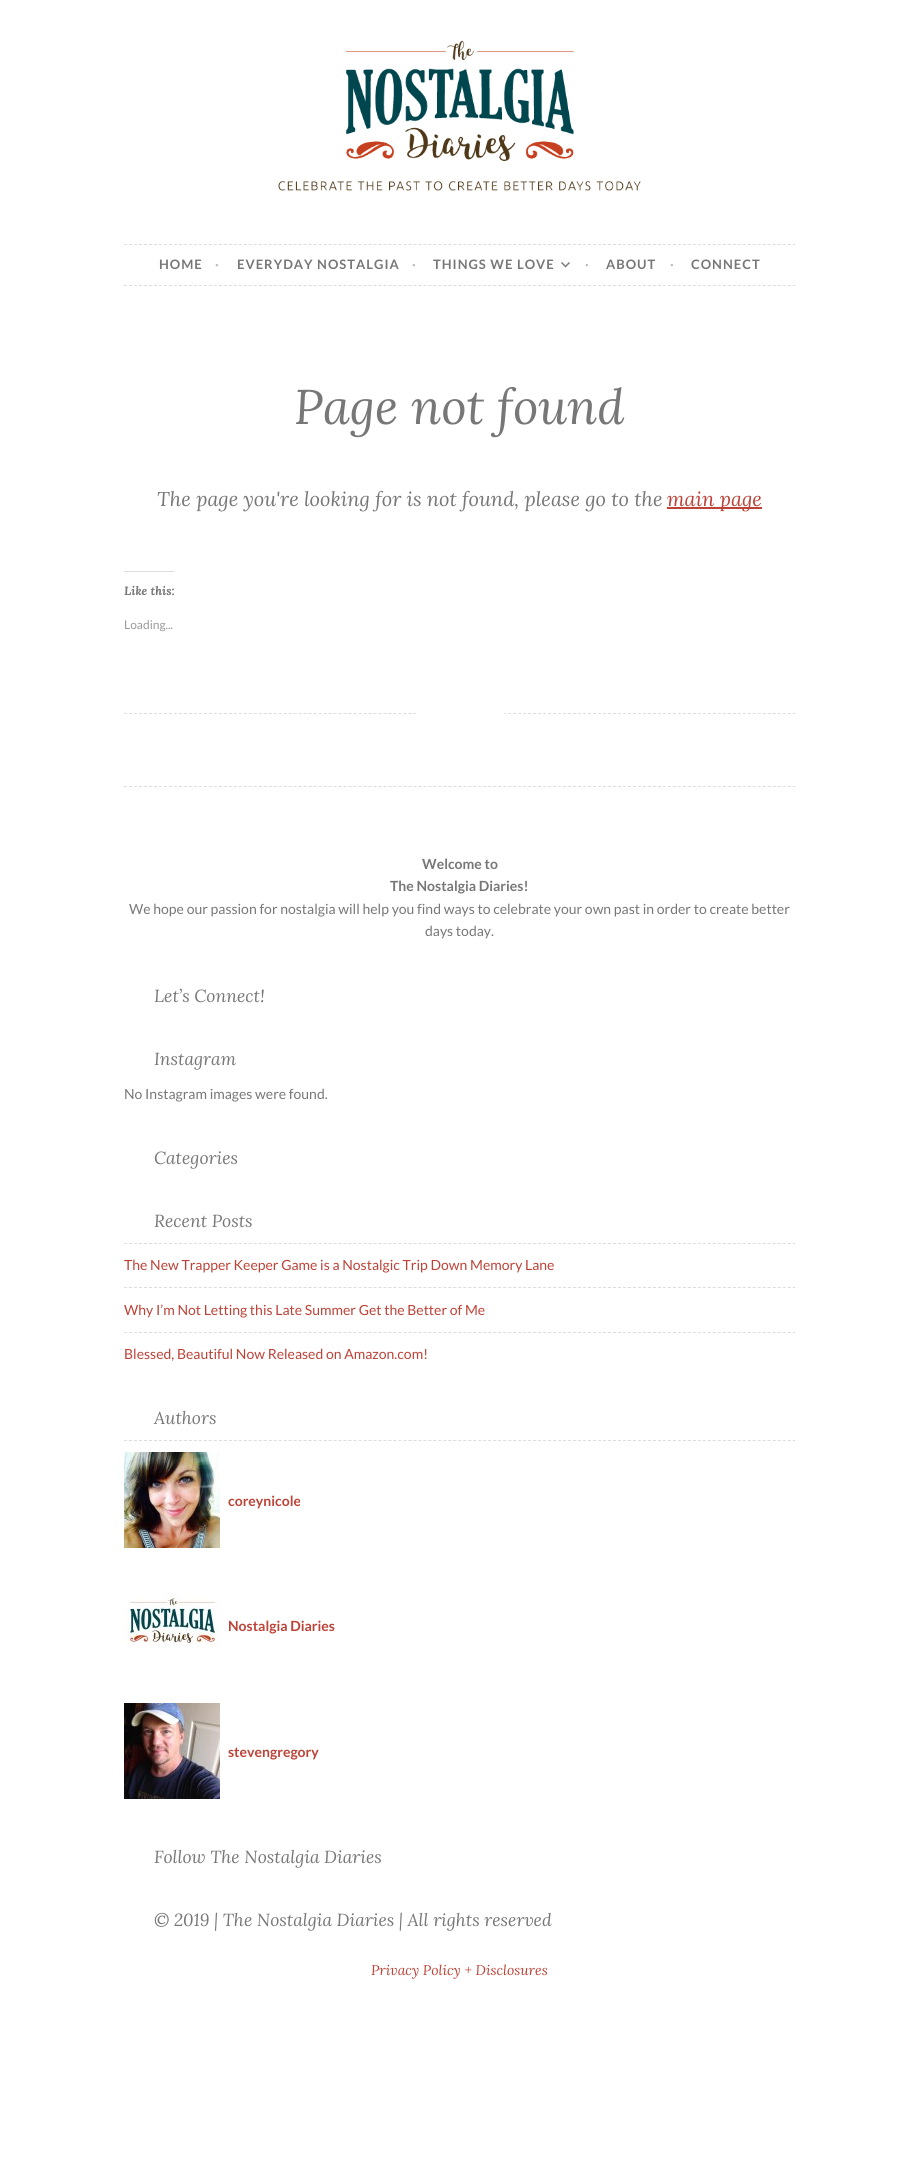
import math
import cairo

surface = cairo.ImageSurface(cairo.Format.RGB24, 919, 2163)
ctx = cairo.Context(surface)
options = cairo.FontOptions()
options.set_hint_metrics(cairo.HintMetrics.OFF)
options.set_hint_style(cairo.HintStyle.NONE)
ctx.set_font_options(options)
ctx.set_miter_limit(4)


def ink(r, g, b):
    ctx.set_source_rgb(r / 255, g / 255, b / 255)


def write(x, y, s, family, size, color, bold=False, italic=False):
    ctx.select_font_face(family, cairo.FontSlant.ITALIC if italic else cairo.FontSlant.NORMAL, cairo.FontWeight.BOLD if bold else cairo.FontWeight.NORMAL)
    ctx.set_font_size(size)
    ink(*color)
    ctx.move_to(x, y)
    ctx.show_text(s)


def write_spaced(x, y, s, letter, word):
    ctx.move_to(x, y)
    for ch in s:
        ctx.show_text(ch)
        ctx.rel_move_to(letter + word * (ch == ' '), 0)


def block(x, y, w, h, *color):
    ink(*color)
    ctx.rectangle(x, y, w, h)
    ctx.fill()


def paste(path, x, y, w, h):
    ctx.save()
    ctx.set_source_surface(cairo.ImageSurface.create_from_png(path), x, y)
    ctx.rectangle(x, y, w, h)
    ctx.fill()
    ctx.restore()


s1 = dict(family="Lora", size=48.75, color=(119, 119, 119), italic=True)
s2 = dict(family="Lora", size=20, color=(119, 119, 119), italic=True)
s3 = dict(family="Lora", size=20, color=(189, 66, 55), italic=True)
s4 = dict(family="Lora", size=12, color=(119, 119, 119), bold=True, italic=True)
s5 = dict(family="Lato", size=12, color=(153, 153, 153))
s6 = dict(family="Lato", size=14, color=(119, 119, 119), bold=True)
s7 = dict(family="Lato", size=14, color=(119, 119, 119))
s8 = dict(family="Lora", size=17.5, color=(119, 119, 119), italic=True)
s9 = dict(family="Lato", size=14, color=(189, 66, 55))
s10 = dict(family="Lato", size=14, color=(189, 66, 55), bold=True)
s11 = dict(family="Lora", size=14, color=(189, 66, 55), italic=True)

ink(255, 255, 255)
ctx.paint()
paste("pic1.png", 278, 40, 363, 151)
ctx.new_path()
ctx.move_to(124, 244.5)
ctx.line_to(795, 244.5)
ink(221, 221, 221)
ctx.set_line_width(1)
ctx.set_dash([3, 1.99])
ctx.stroke()
ctx.new_path()
ctx.move_to(124, 285.5)
ctx.line_to(795, 285.5)
ctx.stroke()
ctx.select_font_face("Lato", cairo.FontSlant.NORMAL, cairo.FontWeight.BOLD)
ctx.set_font_size(13)
ink(119, 119, 119)
write_spaced(159, 269, "HOME", 1, 0)
ink(187, 187, 187)
write_spaced(215, 269, "·", 1, 0)
ink(119, 119, 119)
write_spaced(237, 269, "EVERYDAY NOSTALGIA", 1, 0)
ink(187, 187, 187)
write_spaced(412, 269, "·", 1, 0)
ink(119, 119, 119)
write_spaced(433, 269, "THINGS WE LOVE", 1, 0)
paste("pic2.png", 561, 262, 9, 6)
ink(187, 187, 187)
write_spaced(585, 269, "·", 1, 0)
ink(119, 119, 119)
write_spaced(606, 269, "ABOUT", 1, 0)
ink(187, 187, 187)
write_spaced(670, 269, "·", 1, 0)
ink(119, 119, 119)
write_spaced(691, 269, "CONNECT", 1, 0)
ctx.new_path()
ctx.move_to(124, 713.5)
ctx.line_to(795, 713.5)
ink(221, 221, 221)
ctx.stroke()
write(294, 424, "Page not found", **s1)
write(157, 506, "The page you're looking for is not found, please go to the", **s2)
block(667, 507, 95, 2, 189, 66, 55)
write(667, 506, "main page", **s3)
block(124, 571, 50, 1, 221, 221, 221)
write(124, 595, "Like this:", **s4)
write(124, 629, "Loading...", **s5)
block(416, 713, 88, 1, 255, 255, 255)
ctx.new_path()
ctx.move_to(124, 786.5)
ctx.line_to(795, 786.5)
ink(221, 221, 221)
ctx.stroke()
write(422, 869, "Welcome to", **s6)
write(390, 891, "The Nostalgia Diaries!", **s6)
write(129, 914, "We hope our passion for nostalgia will help you find ways to celebrate your own past in order to create better", **s7)
write(425, 936, "days today.", **s7)
write(154, 1002, "Let’s Connect!", **s8)
write(154, 1065, "Instagram", **s8)
write(124, 1099, "No Instagram images were found.", **s7)
write(154, 1164, "Categories", **s8)
write(154, 1227, "Recent Posts", **s8)
ctx.new_path()
ctx.move_to(124, 1243.5)
ctx.line_to(795, 1243.5)
ink(221, 221, 221)
ctx.stroke()
write(124, 1270, "The New Trapper Keeper Game is a Nostalgic Trip Down Memory Lane", **s9)
ctx.new_path()
ctx.move_to(124, 1287.5)
ctx.line_to(795, 1287.5)
ink(221, 221, 221)
ctx.stroke()
write(124, 1315, "Why I’m Not Letting this Late Summer Get the Better of Me", **s9)
ctx.new_path()
ctx.move_to(124, 1332.5)
ctx.line_to(795, 1332.5)
ink(221, 221, 221)
ctx.stroke()
write(124, 1359, "Blessed, Beautiful Now Released on Amazon.com!", **s9)
write(154, 1424, "Authors", **s8)
ctx.new_path()
ctx.move_to(124, 1440.5)
ctx.line_to(795, 1440.5)
ink(221, 221, 221)
ctx.stroke()
paste("pic3.png", 124, 1452, 96, 96)
write(228, 1506, "coreynicole", **s10)
paste("pic4.png", 124, 1593, 96, 56)
write(228, 1631, "Nostalgia Diaries", **s10)
paste("pic5.png", 124, 1703, 96, 96)
write(228, 1757, "stevengregory", **s10)
write(154, 1863, "Follow The Nostalgia Diaries", **s8)
write(154, 1926, "© 2019 | The Nostalgia Diaries | All rights reserved", **s8)
write(371, 1975, "Privacy Policy + Disclosures", **s11)
surface.write_to_png("screenshot.png")
